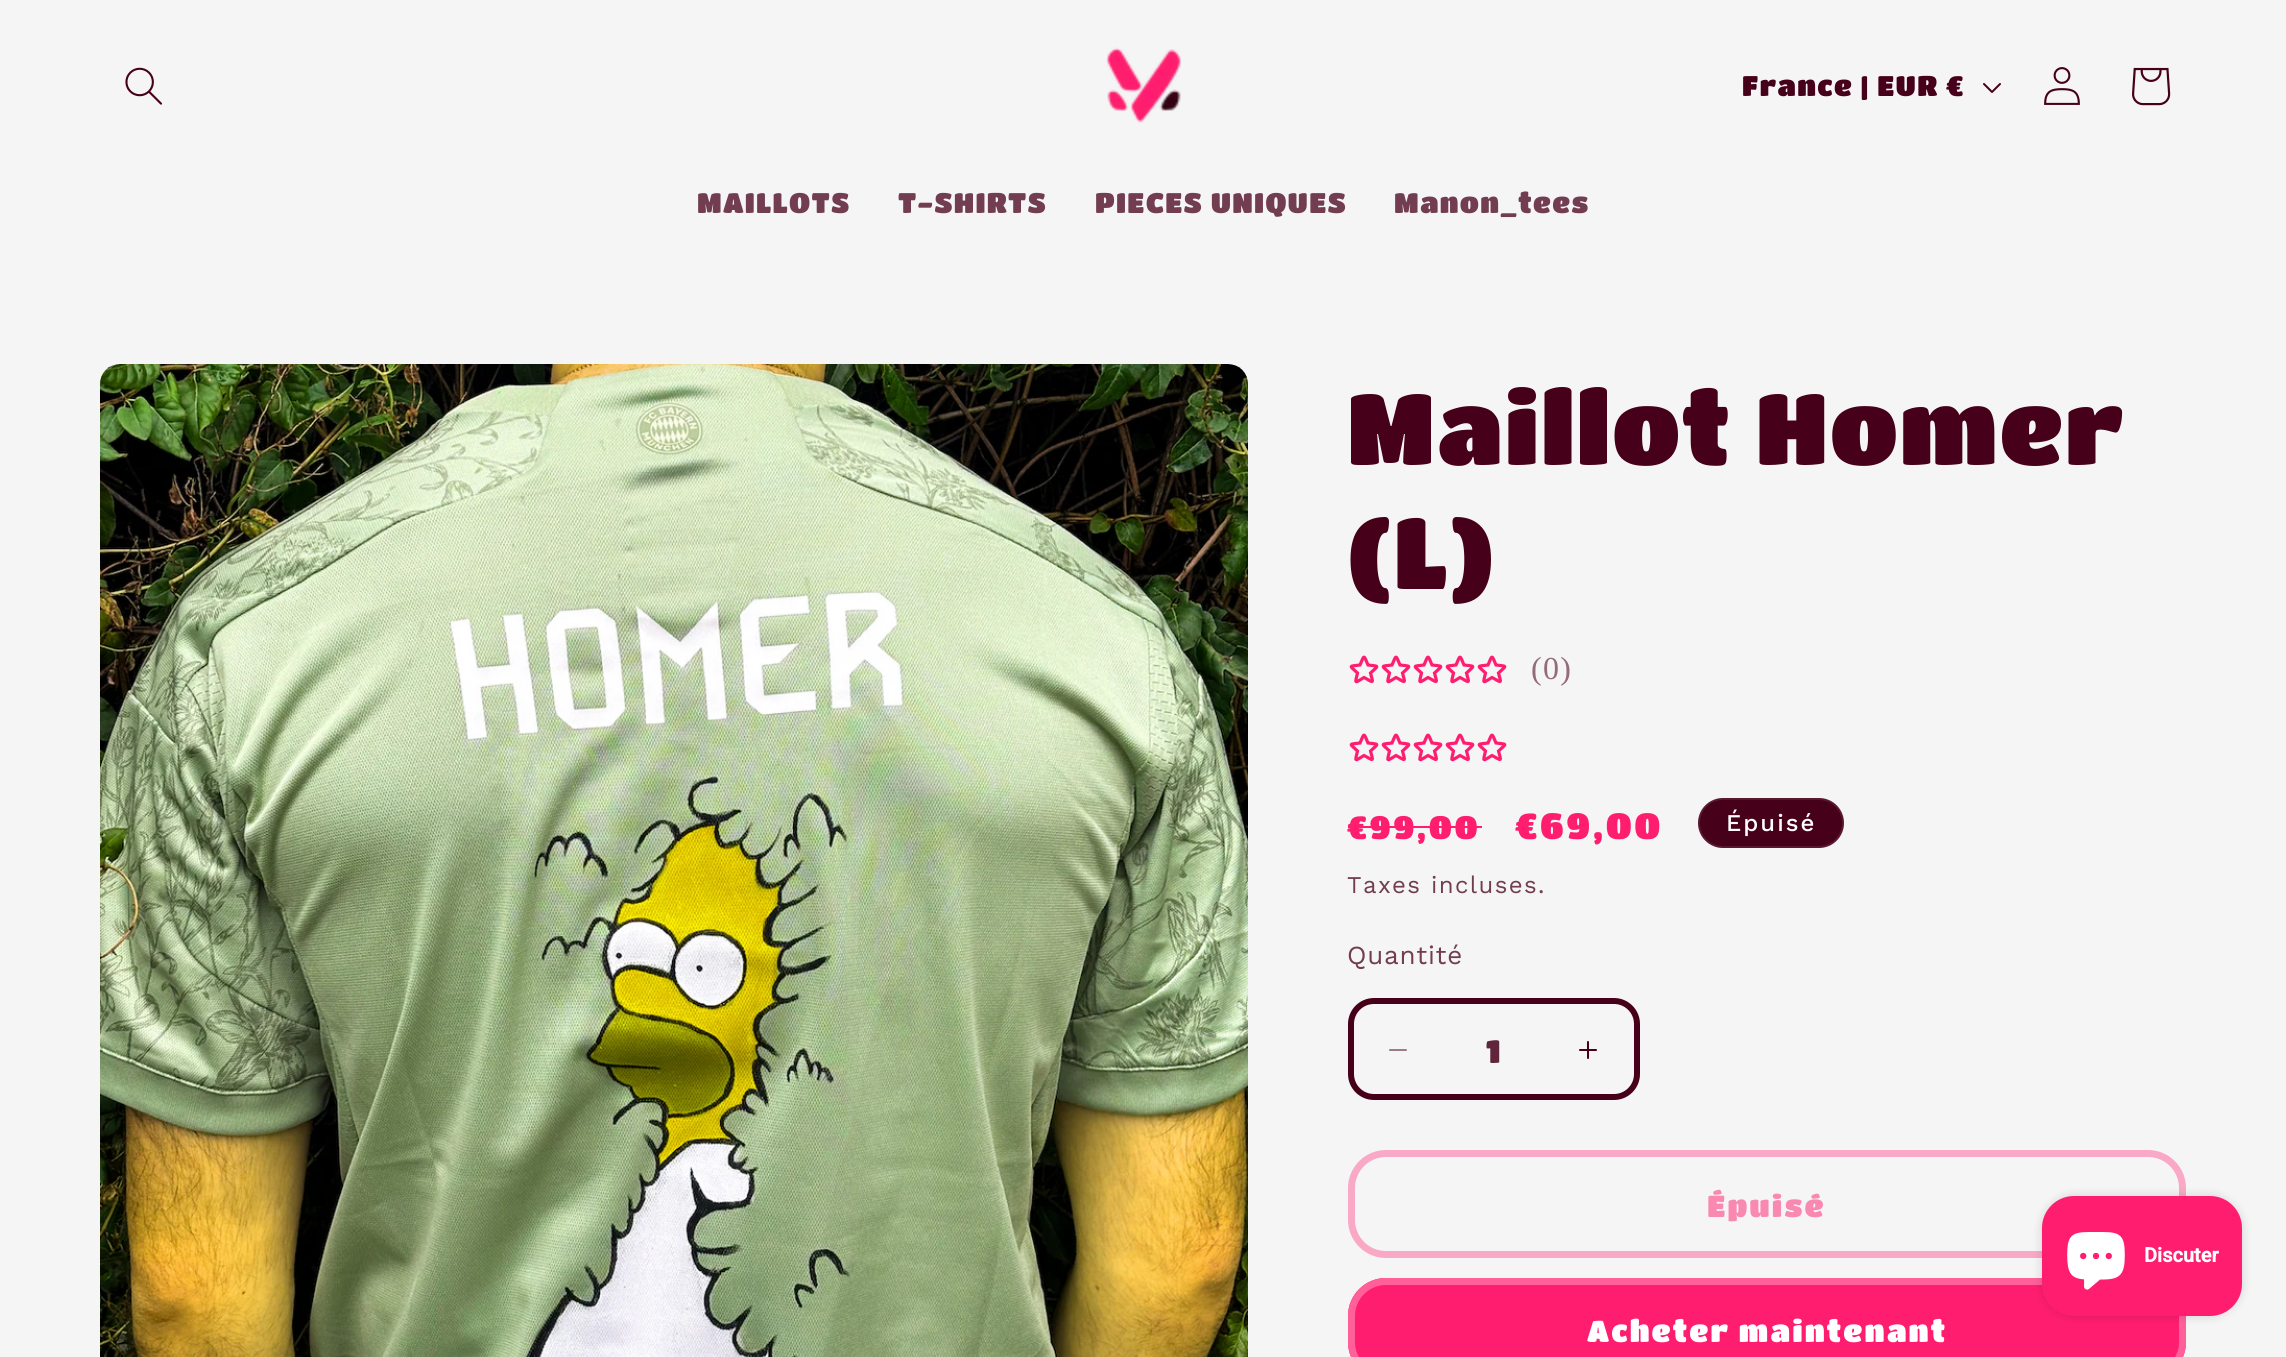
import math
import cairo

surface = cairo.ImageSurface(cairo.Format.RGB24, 2286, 1357)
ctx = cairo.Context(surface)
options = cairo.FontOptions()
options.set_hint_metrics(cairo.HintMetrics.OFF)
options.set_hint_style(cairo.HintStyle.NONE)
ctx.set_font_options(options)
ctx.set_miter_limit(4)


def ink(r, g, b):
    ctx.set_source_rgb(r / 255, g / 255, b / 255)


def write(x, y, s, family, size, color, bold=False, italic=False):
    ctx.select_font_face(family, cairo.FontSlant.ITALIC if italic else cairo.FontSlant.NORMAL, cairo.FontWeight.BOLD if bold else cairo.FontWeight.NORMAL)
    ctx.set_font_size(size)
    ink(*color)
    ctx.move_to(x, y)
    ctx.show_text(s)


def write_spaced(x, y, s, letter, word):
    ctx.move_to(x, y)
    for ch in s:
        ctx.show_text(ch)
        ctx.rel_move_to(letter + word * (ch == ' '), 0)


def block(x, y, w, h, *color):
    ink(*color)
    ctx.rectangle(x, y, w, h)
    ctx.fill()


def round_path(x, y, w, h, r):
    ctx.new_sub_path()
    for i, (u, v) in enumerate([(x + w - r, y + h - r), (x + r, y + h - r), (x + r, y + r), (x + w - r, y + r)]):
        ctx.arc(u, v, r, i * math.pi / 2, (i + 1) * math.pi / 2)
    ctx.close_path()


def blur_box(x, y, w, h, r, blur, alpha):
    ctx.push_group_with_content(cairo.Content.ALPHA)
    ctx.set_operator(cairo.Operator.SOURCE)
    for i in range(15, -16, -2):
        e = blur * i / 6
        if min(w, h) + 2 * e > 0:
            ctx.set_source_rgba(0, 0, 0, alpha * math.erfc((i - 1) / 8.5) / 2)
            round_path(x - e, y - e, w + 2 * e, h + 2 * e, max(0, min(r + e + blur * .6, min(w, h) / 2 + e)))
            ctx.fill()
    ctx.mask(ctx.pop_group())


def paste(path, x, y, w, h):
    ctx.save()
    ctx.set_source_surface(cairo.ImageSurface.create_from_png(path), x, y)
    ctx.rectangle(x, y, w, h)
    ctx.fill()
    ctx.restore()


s1 = dict(family="Titan One", size=32, color=(96, 37, 58))
s2 = dict(family="Roboto", size=20, color=(255, 255, 255), bold=True)

ink(245, 245, 245)
ctx.paint()
paste("pic1.png", 125, 67, 37, 38)
paste("pic2.png", 1106, 47, 75, 76)
ctx.select_font_face("Titan One")
ctx.set_font_size(28)
ink(70, 0, 25)
write_spaced(1742, 96, "France | EUR €", 1.25, 0)
paste("pic3.png", 1983, 83, 18, 10)
paste("pic4.png", 2044, 67, 36, 38)
paste("pic5.png", 2132, 67, 39, 39)
ink(114, 61, 80)
write_spaced(697, 213, "MAILLOTS", 1.25, 0)
write_spaced(898, 213, "T-SHIRTS", 1.25, 0)
write_spaced(1095, 213, "PIECES UNIQUES", 1.25, 0)
write_spaced(1394, 213, "Manon_tees", 1.25, 0)
paste("pic6.png", 100, 364, 1148, 993)
ctx.set_font_size(100)
ink(70, 0, 25)
write_spaced(1347, 465, "Maillot Homer", 1.5, 0)
write_spaced(1347, 589, "(L)", 1.5, 0)
ctx.new_path()
ctx.move_to(1365, 678)
ctx.line_to(1364, 677.5)
ctx.curve_to(1354, 683.5, 1355, 684, 1357.5, 673)
ctx.curve_to(1349, 665, 1348.5, 666.5, 1360, 665)
ctx.curve_to(1364.5, 654.5, 1363.5, 654.5, 1368, 665)
ctx.curve_to(1379.5, 666.5, 1379, 665, 1370.5, 673)
ctx.curve_to(1373, 683, 1374.5, 683.5, 1365, 678)
ctx.close_path()
ctx.move_to(1397, 678)
ctx.line_to(1396, 677.5)
ctx.curve_to(1386, 683.5, 1387, 684, 1389.5, 673)
ctx.curve_to(1381, 665, 1380.5, 666.5, 1392, 665)
ctx.curve_to(1396.5, 654.5, 1395.5, 654.5, 1400, 665)
ctx.curve_to(1411.5, 666.5, 1411, 665, 1402.5, 673)
ctx.curve_to(1405, 683, 1406.5, 683.5, 1397, 678)
ctx.close_path()
ink(255, 29, 111)
ctx.set_line_width(3.2)
ctx.stroke()
ctx.new_path()
ctx.move_to(1429, 678)
ctx.line_to(1428, 677.5)
ctx.curve_to(1418, 683.5, 1419, 684, 1421.5, 673)
ctx.curve_to(1413, 665, 1412.5, 666.5, 1424, 665)
ctx.curve_to(1428.5, 654.5, 1427.5, 654.5, 1432, 665)
ctx.curve_to(1443.5, 666.5, 1443, 665, 1434.5, 673)
ctx.curve_to(1437, 683, 1438.5, 683.5, 1429, 678)
ctx.close_path()
ctx.move_to(1461, 678)
ctx.line_to(1460, 677.5)
ctx.curve_to(1450, 683.5, 1451, 684, 1453.5, 673)
ctx.curve_to(1445, 665, 1444.5, 666.5, 1456, 665)
ctx.curve_to(1460.5, 654.5, 1459.5, 654.5, 1464, 665)
ctx.curve_to(1475.5, 666.5, 1475, 665, 1466.5, 673)
ctx.curve_to(1469, 683, 1470.5, 683.5, 1461, 678)
ctx.close_path()
ctx.stroke()
ctx.new_path()
ctx.move_to(1493, 678)
ctx.line_to(1492, 677.5)
ctx.curve_to(1482, 683.5, 1483, 684, 1485.5, 673)
ctx.curve_to(1477, 665, 1476.5, 666.5, 1488, 665)
ctx.curve_to(1492.5, 654.5, 1491.5, 654.5, 1496, 665)
ctx.curve_to(1507.5, 666.5, 1507, 665, 1498.5, 673)
ctx.curve_to(1501, 683, 1502.5, 683.5, 1493, 678)
ctx.close_path()
ctx.stroke()
ctx.select_font_face("Liberation Serif")
ctx.set_font_size(32)
ink(147, 107, 121)
write_spaced(1531, 679, "(0)", 1.25, 0)
ctx.new_path()
ctx.move_to(1365, 756)
ctx.line_to(1364, 755.5)
ctx.curve_to(1354, 761.5, 1355, 762, 1357.5, 751)
ctx.curve_to(1349, 743, 1348.5, 744.5, 1360, 743)
ctx.curve_to(1364.5, 732.5, 1363.5, 732.5, 1368, 743)
ctx.curve_to(1379.5, 744.5, 1379, 743, 1370.5, 751)
ctx.curve_to(1373, 761, 1374.5, 761.5, 1365, 756)
ctx.close_path()
ctx.move_to(1397, 756)
ctx.line_to(1396, 755.5)
ctx.curve_to(1386, 761.5, 1387, 762, 1389.5, 751)
ctx.curve_to(1381, 743, 1380.5, 744.5, 1392, 743)
ctx.curve_to(1396.5, 732.5, 1395.5, 732.5, 1400, 743)
ctx.curve_to(1411.5, 744.5, 1411, 743, 1402.5, 751)
ctx.curve_to(1405, 761, 1406.5, 761.5, 1397, 756)
ctx.close_path()
ink(255, 29, 111)
ctx.stroke()
ctx.new_path()
ctx.move_to(1429, 756)
ctx.line_to(1428, 755.5)
ctx.curve_to(1418, 761.5, 1419, 762, 1421.5, 751)
ctx.curve_to(1413, 743, 1412.5, 744.5, 1424, 743)
ctx.curve_to(1428.5, 732.5, 1427.5, 732.5, 1432, 743)
ctx.curve_to(1443.5, 744.5, 1443, 743, 1434.5, 751)
ctx.curve_to(1437, 761, 1438.5, 761.5, 1429, 756)
ctx.close_path()
ctx.move_to(1461, 756)
ctx.line_to(1460, 755.5)
ctx.curve_to(1450, 761.5, 1451, 762, 1453.5, 751)
ctx.curve_to(1445, 743, 1444.5, 744.5, 1456, 743)
ctx.curve_to(1460.5, 732.5, 1459.5, 732.5, 1464, 743)
ctx.curve_to(1475.5, 744.5, 1475, 743, 1466.5, 751)
ctx.curve_to(1469, 761, 1470.5, 761.5, 1461, 756)
ctx.close_path()
ctx.stroke()
ctx.new_path()
ctx.move_to(1493, 756)
ctx.line_to(1492, 755.5)
ctx.curve_to(1482, 761.5, 1483, 762, 1485.5, 751)
ctx.curve_to(1477, 743, 1476.5, 744.5, 1488, 743)
ctx.curve_to(1492.5, 732.5, 1491.5, 732.5, 1496, 743)
ctx.curve_to(1507.5, 744.5, 1507, 743, 1498.5, 751)
ctx.curve_to(1501, 761, 1502.5, 761.5, 1493, 756)
ctx.close_path()
ctx.stroke()
ctx.select_font_face("Titan One")
write_spaced(1347, 839, "€99,00", 2.5, 0)
block(1348, 826, 134, 2, 255, 29, 111)
ctx.set_font_size(36)
write_spaced(1515, 839, "€69,00", 2.5, 0)
ink(70, 0, 25)
round_path(1698, 798, 146, 50, 25)
ctx.fill()
round_path(1699, 799, 144, 48, 24)
ctx.set_source_rgba(1, 1, 1, 0.1)
ctx.set_line_width(2)
ctx.stroke()
ctx.select_font_face("Work Sans Medium")
ctx.set_font_size(24)
ink(255, 255, 255)
write_spaced(1726, 831, "Épuisé", 2, 0)
ctx.select_font_face("Work Sans")
ink(114, 61, 80)
write_spaced(1347, 893, "Taxes incluses.", 1.4, 0)
ctx.set_font_size(26)
write_spaced(1347, 964, "Quantité", 0.75, 0)
paste("pic7.png", 1389, 1049, 18, 2)
paste("pic8.png", 1579, 1041, 18, 18)
round_path(1351, 1001, 286, 96, 23)
ink(70, 0, 25)
ctx.set_line_width(6)
ctx.stroke()
write(1486, 1063, "1", **s1)
round_path(1351.5, 1153.5, 831, 101, 34.5)
ink(249, 169, 198)
ctx.set_line_width(7)
ctx.stroke()
ctx.set_font_size(30)
ink(250, 137, 178)
write_spaced(1707, 1217, "Épuisé", 2, 0)
ink(255, 29, 111)
round_path(1348, 1278, 838, 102, 38)
ctx.fill()
round_path(1351, 1281, 832, 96, 35)
ctx.set_line_width(6)
ctx.stroke()
round_path(1351.5, 1281.5, 831, 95, 34.5)
ctx.set_source_rgba(1, 1, 1, 0.3)
ctx.set_line_width(7)
ctx.stroke()
ink(255, 255, 255)
write_spaced(1587, 1342, "Acheter maintenant", 2, 0)
ink(0, 0, 0)
blur_box(2042, 1196, 200, 120, 32, 5, 0.15)
ink(255, 29, 111)
round_path(2042, 1196, 200, 120, 32)
ctx.fill()
paste("pic9.png", 2067, 1232, 58, 58)
write(2144, 1262, "Discuter", **s2)
surface.write_to_png("screenshot.png")
